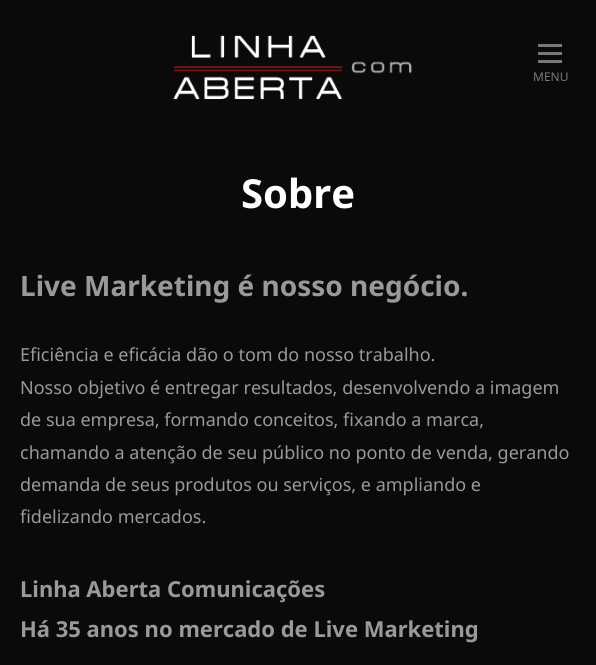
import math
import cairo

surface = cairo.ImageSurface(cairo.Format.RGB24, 596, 665)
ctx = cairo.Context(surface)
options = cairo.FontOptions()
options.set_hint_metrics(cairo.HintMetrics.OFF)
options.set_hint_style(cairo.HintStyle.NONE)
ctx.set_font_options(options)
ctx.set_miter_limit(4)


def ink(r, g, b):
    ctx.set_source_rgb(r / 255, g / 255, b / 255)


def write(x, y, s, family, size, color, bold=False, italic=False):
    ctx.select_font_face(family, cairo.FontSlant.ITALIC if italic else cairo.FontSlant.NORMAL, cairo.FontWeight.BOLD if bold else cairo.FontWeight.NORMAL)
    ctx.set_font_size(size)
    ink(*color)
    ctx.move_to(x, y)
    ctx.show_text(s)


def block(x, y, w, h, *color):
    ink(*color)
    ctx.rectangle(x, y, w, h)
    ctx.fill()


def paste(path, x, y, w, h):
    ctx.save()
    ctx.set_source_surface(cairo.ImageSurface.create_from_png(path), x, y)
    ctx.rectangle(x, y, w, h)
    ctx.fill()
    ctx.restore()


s1 = dict(family="Noto Sans", size=12, color=(120, 120, 120))
s2 = dict(family="Noto Sans", size=40, color=(255, 255, 255), bold=True)
s3 = dict(family="Noto Sans", size=28, color=(153, 153, 153), bold=True)
s4 = dict(family="Noto Sans", size=18, color=(153, 153, 153))
s5 = dict(family="Noto Sans", size=22, color=(153, 153, 153), bold=True)

ink(10, 10, 10)
ctx.paint()
paste("pic1.png", 173, 35, 239, 65)
block(538, 52, 24, 3, 120, 120, 120)
block(538, 44, 24, 3, 120, 120, 120)
block(538, 60, 24, 3, 120, 120, 120)
write(533, 81, "MENU", **s1)
write(241, 208, "Sobre", **s2)
write(20, 296, "Live Marketing é nosso negócio.", **s3)
write(20, 361, "Eficiência e eficácia dão o tom do nosso trabalho.", **s4)
write(20, 394, "Nosso objetivo é entregar resultados, desenvolvendo a imagem", **s4)
write(20, 426, "de sua empresa, formando conceitos, fixando a marca,", **s4)
write(20, 459, "chamando a atenção de seu público no ponto de venda, gerando", **s4)
write(20, 491, "demanda de seus produtos ou serviços, e ampliando e", **s4)
write(20, 523, "fidelizando mercados.", **s4)
write(20, 597, "Linha Aberta Comunicações", **s5)
write(20, 637, "Há 35 anos no mercado de Live Marketing", **s5)
surface.write_to_png("screenshot.png")
